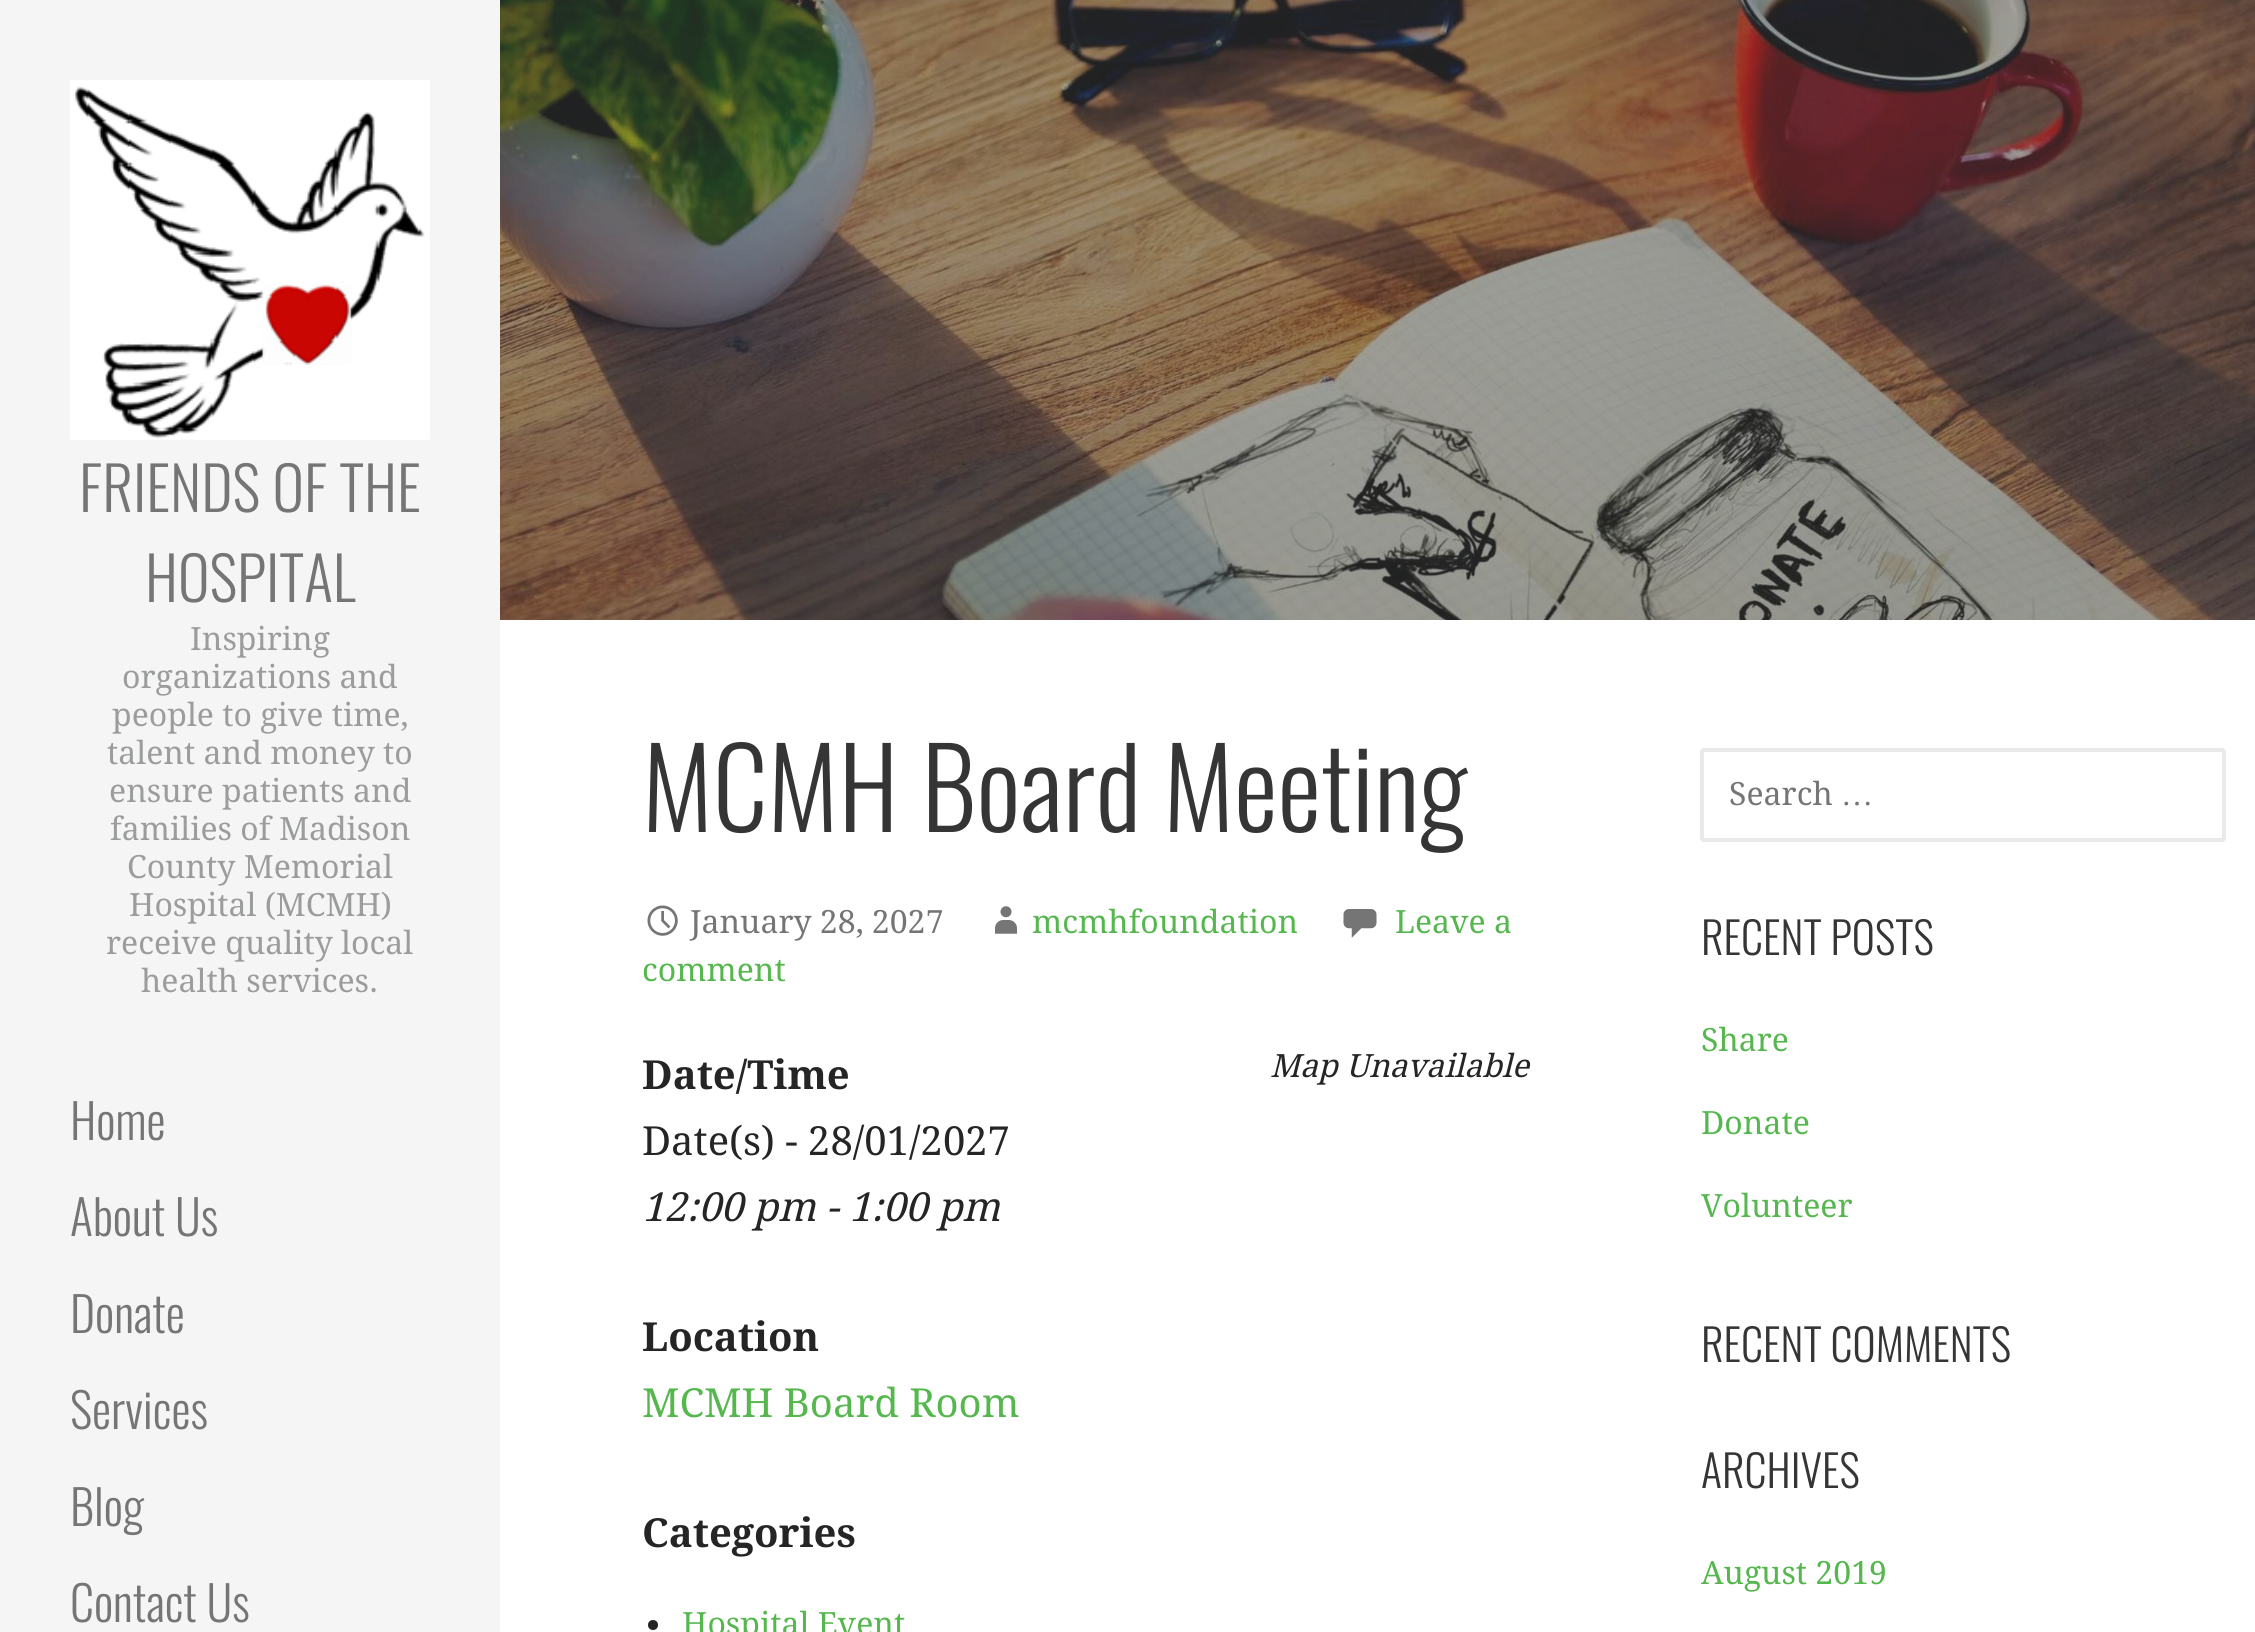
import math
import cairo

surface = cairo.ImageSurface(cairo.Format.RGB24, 2255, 1632)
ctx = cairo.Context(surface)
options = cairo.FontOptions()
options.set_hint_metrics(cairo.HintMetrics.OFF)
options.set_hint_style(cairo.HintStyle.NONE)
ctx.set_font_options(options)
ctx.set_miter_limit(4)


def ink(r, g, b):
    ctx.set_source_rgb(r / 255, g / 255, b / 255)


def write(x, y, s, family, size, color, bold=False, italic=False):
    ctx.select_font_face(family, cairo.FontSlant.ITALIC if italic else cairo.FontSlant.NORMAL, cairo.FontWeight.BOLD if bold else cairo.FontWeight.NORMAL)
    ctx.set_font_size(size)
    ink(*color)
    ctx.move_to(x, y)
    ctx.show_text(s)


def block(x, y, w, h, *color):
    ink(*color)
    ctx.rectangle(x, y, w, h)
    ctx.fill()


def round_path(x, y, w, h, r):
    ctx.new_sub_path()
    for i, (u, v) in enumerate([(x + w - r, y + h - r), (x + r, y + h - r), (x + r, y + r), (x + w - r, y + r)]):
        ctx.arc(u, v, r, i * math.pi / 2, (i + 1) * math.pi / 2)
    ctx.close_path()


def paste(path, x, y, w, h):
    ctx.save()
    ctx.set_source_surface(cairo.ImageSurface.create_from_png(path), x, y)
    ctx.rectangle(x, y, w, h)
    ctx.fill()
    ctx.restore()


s1 = dict(family="Oswald Light", size=60, color=(117, 117, 117))
s2 = dict(family="Droid Serif", size=32, color=(155, 156, 156))
s3 = dict(family="Oswald Light", size=48, color=(117, 117, 117))
s4 = dict(family="Oswald Light", size=110, color=(53, 53, 53))
s5 = dict(family="Droid Serif", size=32, color=(117, 117, 117))
s6 = dict(family="Droid Serif", size=32, color=(85, 183, 78))
s7 = dict(family="Droid Serif", size=40, color=(37, 37, 37), bold=True)
s8 = dict(family="Droid Serif", size=40, color=(37, 37, 37))
s9 = dict(family="Droid Serif", size=40, color=(37, 37, 37), italic=True)
s10 = dict(family="Droid Serif", size=32, color=(37, 37, 37), italic=True)
s11 = dict(family="Droid Serif", size=40, color=(85, 183, 78))
s12 = dict(family="Liberation Serif", size=32, color=(117, 117, 117))
s13 = dict(family="Oswald Light", size=44, color=(53, 53, 53))

ink(255, 255, 255)
ctx.paint()
paste("pic1.png", 500, 0, 1755, 620)
block(0, 0, 500, 1632, 245, 245, 245)
paste("pic2.png", 70, 80, 360, 360)
write(79, 512, "FRIENDS OF THE", **s1)
write(145, 602, "HOSPITAL", **s1)
write(190, 650, "Inspiring", **s2)
write(122, 688, "organizations and", **s2)
write(112, 726, "people to give time,", **s2)
write(107, 764, "talent and money to", **s2)
write(109, 802, "ensure patients and", **s2)
write(110, 840, "families of Madison", **s2)
write(127, 878, "County Memorial", **s2)
write(129, 916, "Hospital (MCMH)", **s2)
write(106, 954, "receive quality local", **s2)
write(141, 992, "health services.", **s2)
write(70, 1140, "Home", **s3)
write(70, 1236, "About Us", **s3)
write(70, 1333, "Donate", **s3)
write(70, 1429, "Services", **s3)
write(70, 1526, "Blog", **s3)
write(70, 1622, "Contact Us", **s3)
write(642, 832, "MCMH Board Meeting", **s4)
paste("pic3.png", 647, 905, 31, 31)
write(690, 933, "January 28, 2027", **s5)
paste("pic4.png", 995, 906, 22, 28)
write(1032, 933, "mcmhfoundation", **s6)
paste("pic5.png", 1343, 909, 34, 29)
write(1395, 933, "Leave a", **s6)
write(642, 981, "comment", **s6)
write(642, 1089, "Date/Time", **s7)
write(642, 1155, "Date(s) - 28/01/2027", **s8)
write(642, 1221, "12:00 pm - 1:00 pm", **s9)
write(1270, 1077, "Map Unavailable", **s10)
write(642, 1351, "Location", **s7)
write(642, 1417, "MCMH Board Room", **s11)
write(642, 1547, "Categories", **s7)
ctx.new_path()
ctx.arc(653, 1625, 5, 0, 2 * math.pi)
ctx.fill()
write(682, 1635, "Hospital Event", **s6)
round_path(1702, 750, 522, 90, 2)
ink(233, 233, 233)
ctx.set_line_width(4)
ctx.stroke()
write(1729, 805, "Search", **s5)
write(1841, 805, "…", **s12)
write(1701, 955, "RECENT POSTS", **s13)
write(1701, 1051, "Share", **s6)
write(1701, 1134, "Donate", **s6)
write(1701, 1217, "Volunteer", **s6)
write(1701, 1362, "RECENT COMMENTS", **s13)
write(1701, 1488, "ARCHIVES", **s13)
write(1701, 1584, "August 2019", **s6)
surface.write_to_png("screenshot.png")
